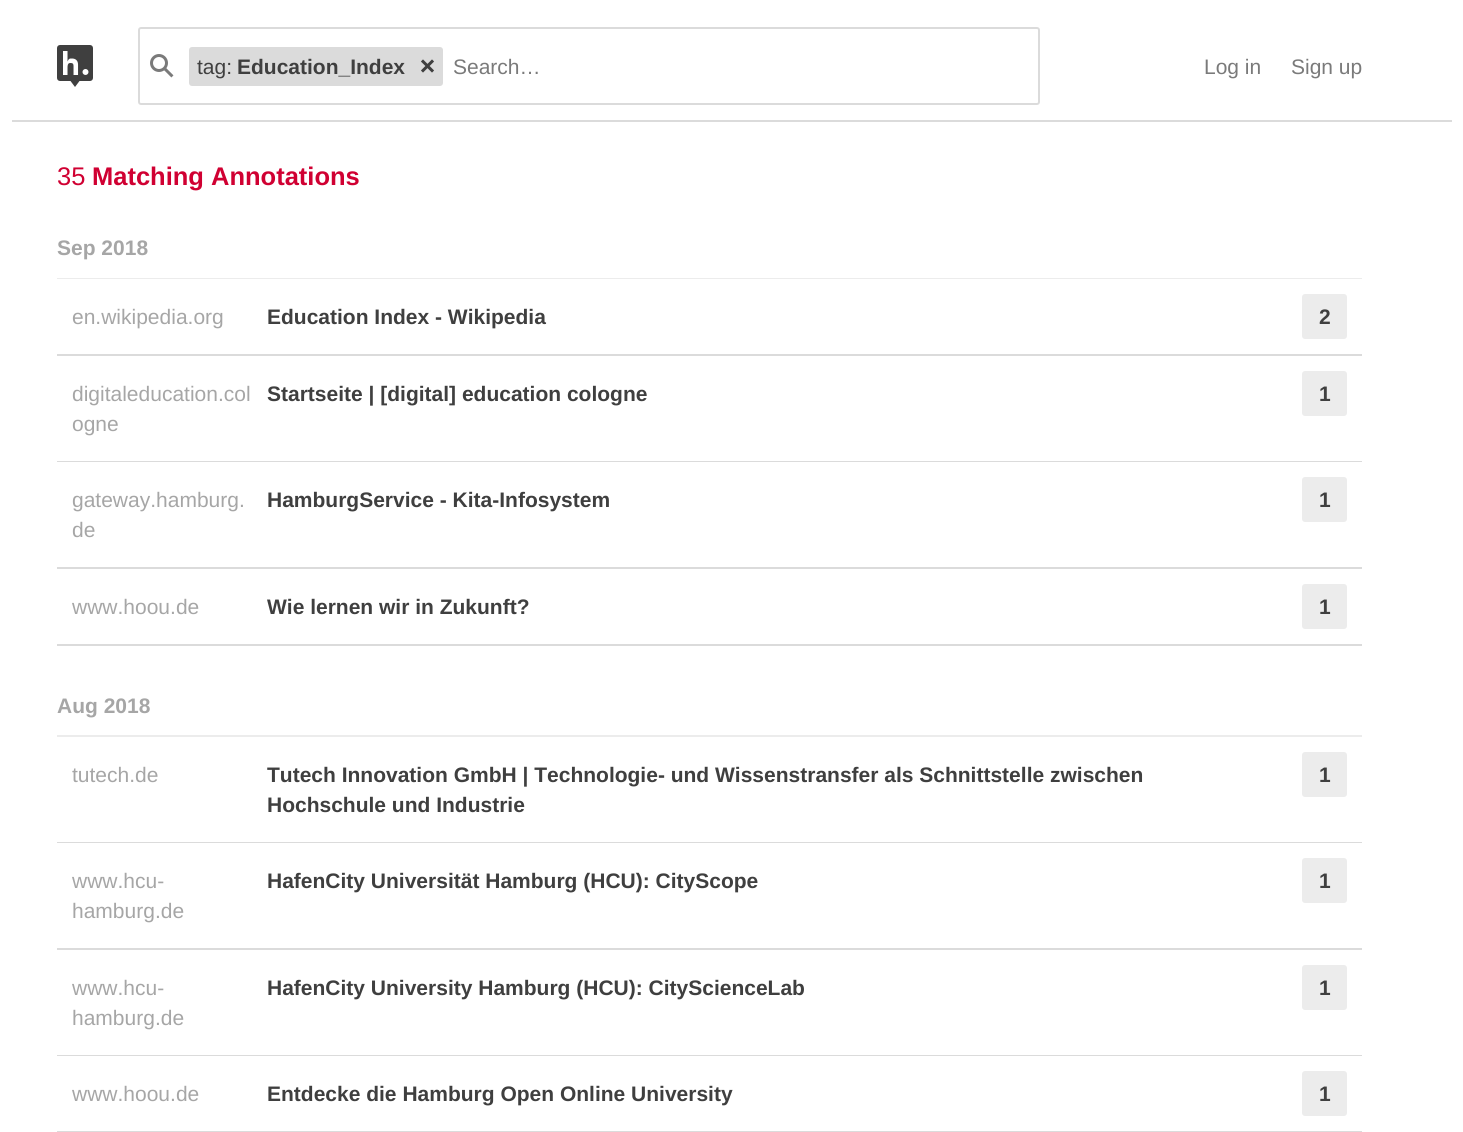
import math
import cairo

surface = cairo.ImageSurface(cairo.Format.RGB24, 1463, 1132)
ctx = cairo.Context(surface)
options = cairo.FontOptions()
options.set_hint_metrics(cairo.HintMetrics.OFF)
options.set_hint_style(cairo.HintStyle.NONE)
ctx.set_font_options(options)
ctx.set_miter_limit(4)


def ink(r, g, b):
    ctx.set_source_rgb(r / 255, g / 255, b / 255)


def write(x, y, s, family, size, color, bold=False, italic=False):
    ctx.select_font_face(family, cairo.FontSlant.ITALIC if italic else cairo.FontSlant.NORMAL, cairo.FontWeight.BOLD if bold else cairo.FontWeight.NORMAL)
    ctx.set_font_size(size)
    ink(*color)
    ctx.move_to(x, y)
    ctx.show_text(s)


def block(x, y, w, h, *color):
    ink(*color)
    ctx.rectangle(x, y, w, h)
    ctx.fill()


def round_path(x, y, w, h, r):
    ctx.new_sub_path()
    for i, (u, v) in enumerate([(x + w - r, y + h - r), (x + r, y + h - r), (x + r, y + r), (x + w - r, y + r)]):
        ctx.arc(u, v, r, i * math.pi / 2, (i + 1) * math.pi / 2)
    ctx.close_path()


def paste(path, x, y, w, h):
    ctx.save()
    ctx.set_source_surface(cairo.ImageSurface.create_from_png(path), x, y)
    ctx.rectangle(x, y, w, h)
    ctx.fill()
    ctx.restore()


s1 = dict(family="Liberation Sans", size=21, color=(63, 63, 63))
s2 = dict(family="Liberation Sans", size=21, color=(63, 63, 63), bold=True)
s3 = dict(family="Liberation Sans", size=21, color=(122, 122, 122))
s4 = dict(family="Liberation Sans", size=25.5, color=(208, 0, 50))
s5 = dict(family="Liberation Sans", size=25.5, color=(208, 0, 50), bold=True)
s6 = dict(family="Liberation Sans", size=21, color=(166, 166, 166), bold=True)
s7 = dict(family="Liberation Sans", size=21, color=(166, 166, 166))

ink(255, 255, 255)
ctx.paint()
block(12, 120, 1440, 2, 219, 219, 219)
paste("pic1.png", 57, 45, 36, 42)
round_path(139, 28, 900, 76, 2)
ctx.stroke()
paste("pic2.png", 150, 54, 24, 24)
round_path(189, 47, 254, 39, 3)
ctx.fill()
write(197, 74, "tag:", **s1)
write(237, 74, "Education_Index", **s2)
paste("pic3.png", 421, 59, 13, 14)
write(453, 74, "Search…", **s3)
write(1204, 74, "Log in", **s3)
write(1291, 74, "Sign up", **s3)
write(57, 185, "35", **s4)
write(92, 185, "Matching Annotations", **s5)
block(57, 278, 1305, 1, 236, 236, 236)
write(57, 255, "Sep 2018", **s6)
block(57, 354, 1305, 2, 219, 219, 219)
write(72, 324, "en.wikipedia.org", **s7)
write(267, 324, "Education Index - Wikipedia", **s2)
ink(236, 236, 236)
round_path(1302, 294, 45, 45, 3)
ctx.fill()
write(1319, 324, "2", **s2)
block(57, 461, 1305, 1, 219, 219, 219)
write(72, 401, "digitaleducation.col", **s7)
write(72, 431, "ogne", **s7)
write(267, 401, "Startseite | [digital] education cologne", **s2)
ink(236, 236, 236)
round_path(1302, 371, 45, 45, 3)
ctx.fill()
write(1319, 401, "1", **s2)
block(57, 567, 1305, 2, 219, 219, 219)
write(72, 507, "gateway.hamburg.", **s7)
write(72, 537, "de", **s7)
write(267, 507, "HamburgService - Kita-Infosystem", **s2)
ink(236, 236, 236)
round_path(1302, 477, 45, 45, 3)
ctx.fill()
write(1319, 507, "1", **s2)
block(57, 644, 1305, 2, 219, 219, 219)
write(72, 614, "www.hoou.de", **s7)
write(267, 614, "Wie lernen wir in Zukunft?", **s2)
ink(236, 236, 236)
round_path(1302, 584, 45, 45, 3)
ctx.fill()
write(1319, 614, "1", **s2)
block(57, 735, 1305, 2, 236, 236, 236)
write(57, 713, "Aug 2018", **s6)
block(57, 842, 1305, 1, 219, 219, 219)
write(72, 782, "tutech.de", **s7)
write(267, 782, "Tutech Innovation GmbH | Technologie- und Wissenstransfer als Schnittstelle zwischen", **s2)
write(267, 812, "Hochschule und Industrie", **s2)
ink(236, 236, 236)
round_path(1302, 752, 45, 45, 3)
ctx.fill()
write(1319, 782, "1", **s2)
block(57, 948, 1305, 2, 219, 219, 219)
write(72, 888, "www.hcu-", **s7)
write(72, 918, "hamburg.de", **s7)
write(267, 888, "HafenCity Universität Hamburg (HCU): CityScope", **s2)
ink(236, 236, 236)
round_path(1302, 858, 45, 45, 3)
ctx.fill()
write(1319, 888, "1", **s2)
block(57, 1055, 1305, 1, 219, 219, 219)
write(72, 995, "www.hcu-", **s7)
write(72, 1025, "hamburg.de", **s7)
write(267, 995, "HafenCity University Hamburg (HCU): CityScienceLab", **s2)
ink(236, 236, 236)
round_path(1302, 965, 45, 45, 3)
ctx.fill()
write(1319, 995, "1", **s2)
block(57, 1131, 1305, 1, 219, 219, 219)
write(72, 1101, "www.hoou.de", **s7)
write(267, 1101, "Entdecke die Hamburg Open Online University", **s2)
ink(236, 236, 236)
round_path(1302, 1071, 45, 45, 3)
ctx.fill()
write(1319, 1101, "1", **s2)
surface.write_to_png("screenshot.png")
